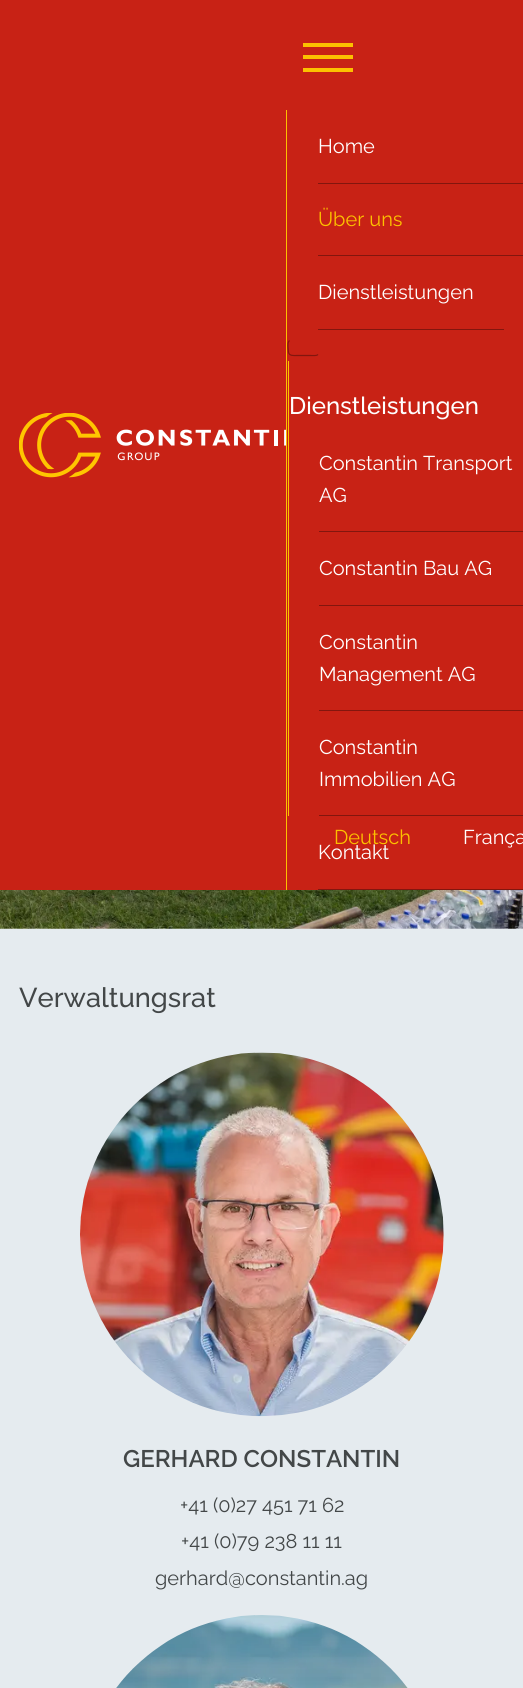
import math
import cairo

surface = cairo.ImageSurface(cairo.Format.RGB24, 523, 1688)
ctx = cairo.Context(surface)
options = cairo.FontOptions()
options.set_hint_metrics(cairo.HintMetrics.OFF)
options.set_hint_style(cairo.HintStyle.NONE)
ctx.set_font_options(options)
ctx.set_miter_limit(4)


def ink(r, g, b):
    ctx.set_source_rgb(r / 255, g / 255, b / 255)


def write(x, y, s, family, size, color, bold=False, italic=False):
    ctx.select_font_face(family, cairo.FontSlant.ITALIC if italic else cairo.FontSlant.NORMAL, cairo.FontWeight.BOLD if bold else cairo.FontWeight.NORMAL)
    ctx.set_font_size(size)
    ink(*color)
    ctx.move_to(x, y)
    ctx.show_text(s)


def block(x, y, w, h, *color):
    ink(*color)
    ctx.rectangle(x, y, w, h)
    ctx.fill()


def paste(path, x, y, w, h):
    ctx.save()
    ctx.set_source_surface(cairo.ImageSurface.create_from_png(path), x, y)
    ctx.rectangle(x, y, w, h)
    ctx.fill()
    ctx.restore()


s1 = dict(family="Raleway", size=20, color=(255, 255, 255))
s2 = dict(family="Raleway", size=20, color=(252, 193, 0))
s3 = dict(family="Raleway Medium", size=24, color=(255, 255, 255))
s4 = dict(family="Raleway Medium", size=27.25, color=(67, 71, 72))
s5 = dict(family="Raleway SemiBold", size=24, color=(67, 71, 72))
s6 = dict(family="Raleway", size=20, color=(67, 71, 72))

ink(255, 255, 255)
ctx.paint()
block(0, 0, 523, 890, 200, 34, 21)
paste("pic1.png", 19, 413, 267, 65)
block(303, 55, 50, 4, 252, 193, 0)
block(303, 43, 50, 4, 252, 193, 0)
block(303, 68, 50, 4, 252, 193, 0)
block(286, 110, 1, 780, 252, 193, 0)
block(318, 183, 205, 1, 131, 22, 14)
write(318, 153, "Home", **s1)
block(318, 255, 205, 1, 131, 22, 14)
write(318, 226, "Über uns", **s2)
block(318, 329, 186, 1, 131, 22, 14)
write(318, 299, "Dienstleistungen", **s1)
ctx.new_path()
ctx.move_to(318, 354.5)
ctx.curve_to(316.5, 356, 313.5, 355.5, 311, 355.5)
ctx.line_to(296, 355.5)
ctx.curve_to(293.5, 355.5, 289.5, 356, 288.5, 352.5)
ctx.line_to(288, 347.5)
ctx.curve_to(288, 345, 287.5, 342.5, 289.5, 340.5)
ink(131, 22, 14)
ctx.set_line_width(1.2)
ctx.stroke()
block(288, 361, 1, 455, 252, 193, 0)
write(289, 414, "Dienstleistungen", **s3)
block(319, 531, 204, 1, 131, 22, 14)
write(319, 470, "Constantin Transport", **s1)
write(319, 502, "AG", **s1)
block(319, 605, 204, 1, 131, 22, 14)
write(319, 575, "Constantin Bau AG", **s1)
block(319, 710, 204, 1, 131, 22, 14)
write(319, 649, "Constantin", **s1)
write(319, 681, "Management AG", **s1)
block(319, 815, 204, 1, 131, 22, 14)
write(319, 754, "Constantin", **s1)
write(319, 786, "Immobilien AG", **s1)
block(318, 889, 205, 1, 131, 22, 14)
write(318, 859, "Kontakt", **s1)
write(334, 844, "Deutsch", **s2)
write(463, 844, "França", **s1)
paste("pic2.png", 0, 890, 523, 39)
block(0, 929, 523, 759, 229, 235, 239)
write(19, 1007, "Verwaltungsrat", **s4)
paste("pic3.png", 80, 1052, 364, 365)
write(123, 1467, "GERHARD CONSTANTIN", **s5)
write(180, 1512, "+41 (0)27 451 71 62", **s6)
write(181, 1548, "+41 (0)79 238 11 11", **s6)
write(155, 1585, "gerhard@constantin.ag", **s6)
paste("pic4.png", 116, 1615, 292, 73)
surface.write_to_png("screenshot.png")
